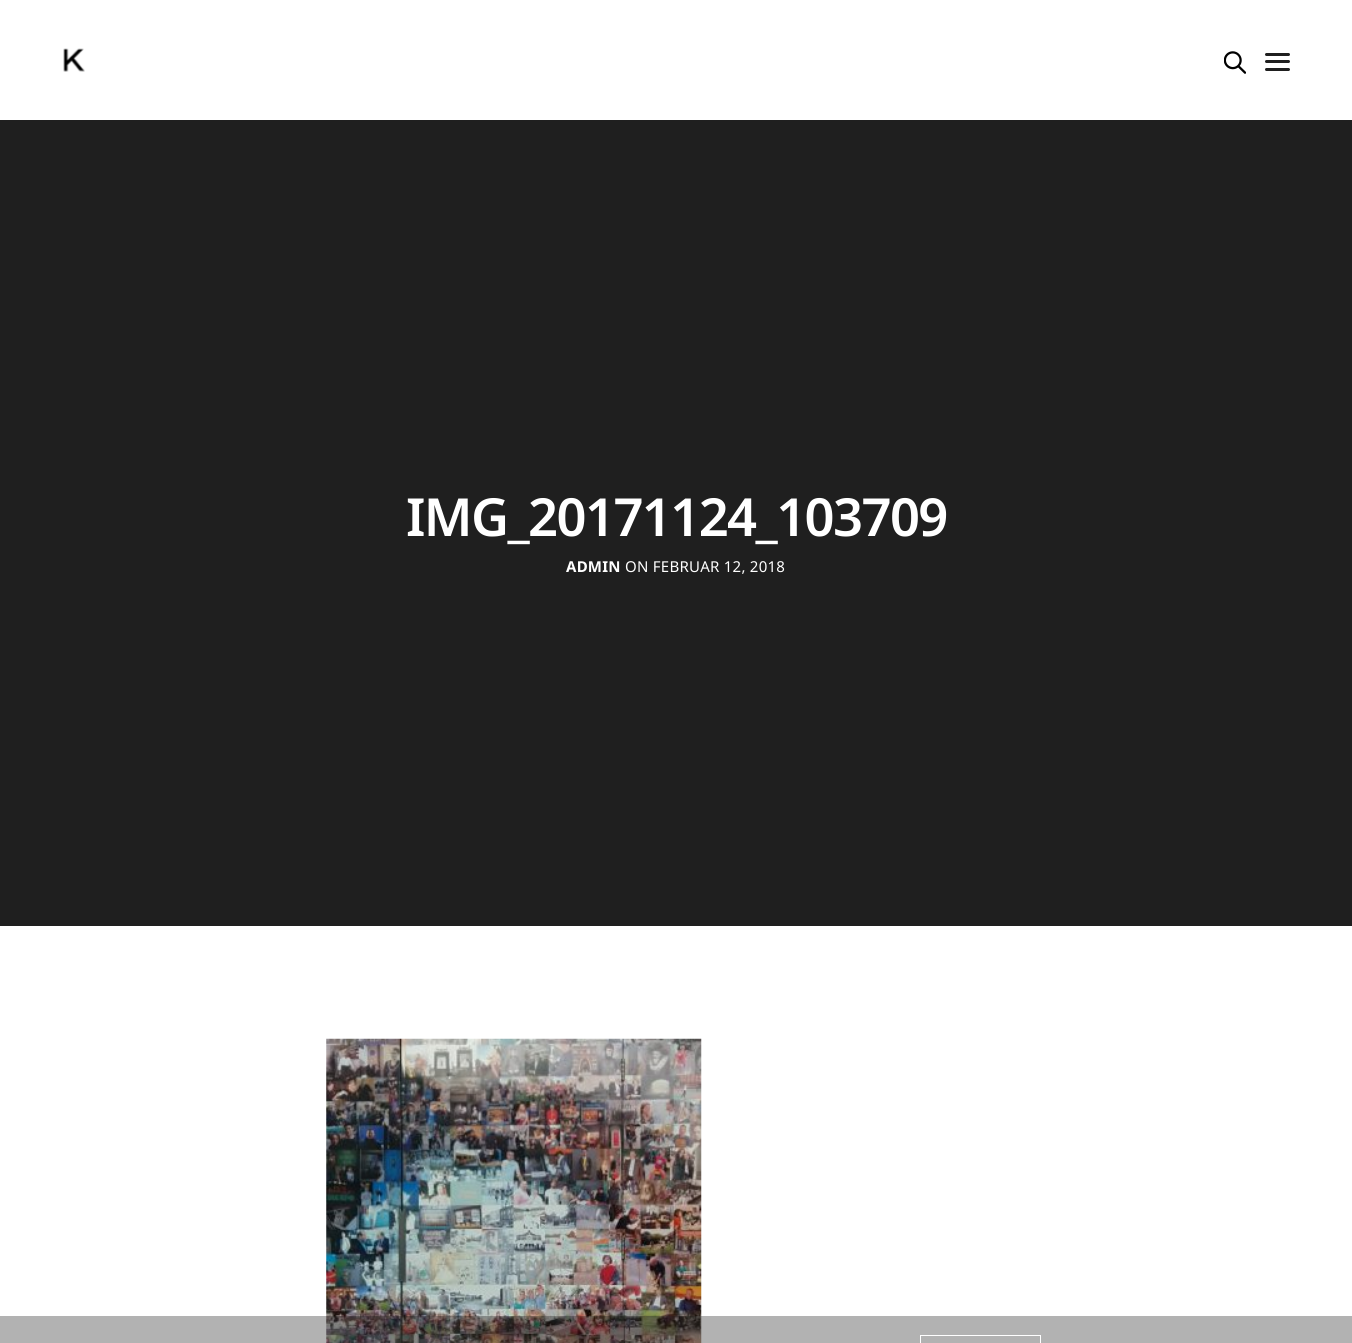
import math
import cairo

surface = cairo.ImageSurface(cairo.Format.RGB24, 1352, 1343)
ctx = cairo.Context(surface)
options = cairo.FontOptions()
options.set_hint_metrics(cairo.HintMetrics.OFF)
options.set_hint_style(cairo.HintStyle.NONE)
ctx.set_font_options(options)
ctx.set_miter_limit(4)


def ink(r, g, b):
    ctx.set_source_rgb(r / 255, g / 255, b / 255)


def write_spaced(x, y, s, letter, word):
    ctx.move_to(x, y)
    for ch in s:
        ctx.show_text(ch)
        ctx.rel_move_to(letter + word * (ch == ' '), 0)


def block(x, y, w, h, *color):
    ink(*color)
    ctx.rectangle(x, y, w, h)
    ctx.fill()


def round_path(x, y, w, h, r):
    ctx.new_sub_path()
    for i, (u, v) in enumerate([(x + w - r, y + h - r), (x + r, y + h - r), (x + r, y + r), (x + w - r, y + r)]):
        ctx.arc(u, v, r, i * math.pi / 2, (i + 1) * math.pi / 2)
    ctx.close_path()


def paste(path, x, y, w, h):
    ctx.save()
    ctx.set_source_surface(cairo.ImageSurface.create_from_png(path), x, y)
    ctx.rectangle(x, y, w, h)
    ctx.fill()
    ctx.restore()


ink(255, 255, 255)
ctx.paint()
paste("pic1.png", 63, 48, 22, 24)
paste("pic2.png", 1224, 51, 22, 23)
ink(31, 31, 31)
round_path(1265, 53, 25, 3, 1.5)
ctx.fill()
round_path(1265, 60, 25, 3, 1.5)
ctx.fill()
round_path(1265, 68, 25, 3, 1.5)
ctx.fill()
block(0, 120, 1352, 806, 31, 31, 31)
ctx.select_font_face("Noto Sans SemiBold")
ctx.set_font_size(52.5)
ink(255, 255, 255)
write_spaced(406, 536, "IMG_20171124_103709", -1.6, 0)
ctx.select_font_face("Noto Sans", cairo.FontSlant.NORMAL, cairo.FontWeight.BOLD)
ctx.set_font_size(15)
write_spaced(566, 572, "ADMIN", 0.25, 0)
ctx.select_font_face("Noto Sans")
write_spaced(625, 572, "ON FEBRUAR 12, 2018", 0.25, 0)
paste("pic3.png", 326, 1038, 376, 305)
ctx.set_source_rgba(0.122, 0.122, 0.122, 0.34)
ctx.rectangle(0, 1316, 1352, 27)
ctx.fill()
ctx.rectangle(920.5, 1335.5, 120, 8)
ink(255, 255, 255)
ctx.set_line_width(1)
ctx.stroke()
surface.write_to_png("screenshot.png")
